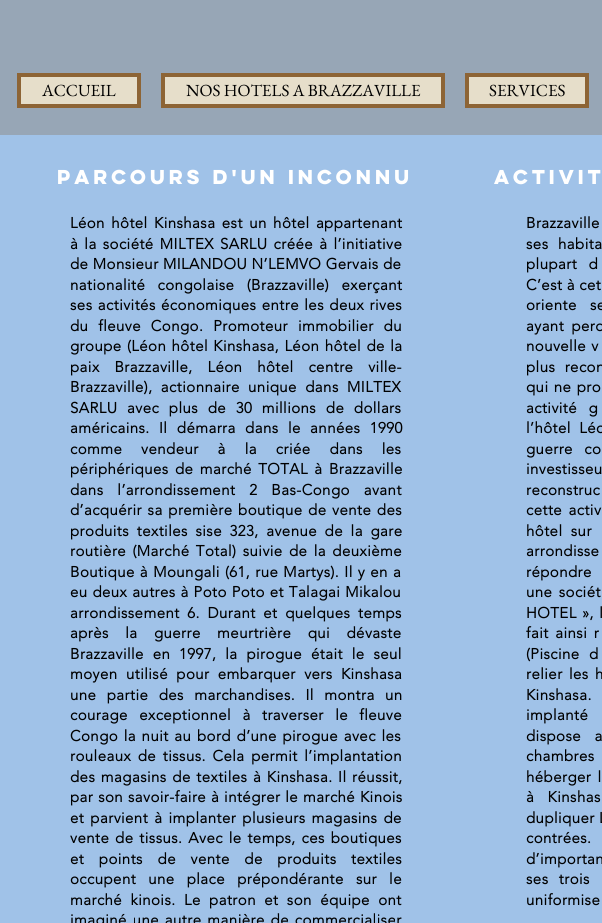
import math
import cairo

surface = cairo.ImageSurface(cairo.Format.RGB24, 602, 923)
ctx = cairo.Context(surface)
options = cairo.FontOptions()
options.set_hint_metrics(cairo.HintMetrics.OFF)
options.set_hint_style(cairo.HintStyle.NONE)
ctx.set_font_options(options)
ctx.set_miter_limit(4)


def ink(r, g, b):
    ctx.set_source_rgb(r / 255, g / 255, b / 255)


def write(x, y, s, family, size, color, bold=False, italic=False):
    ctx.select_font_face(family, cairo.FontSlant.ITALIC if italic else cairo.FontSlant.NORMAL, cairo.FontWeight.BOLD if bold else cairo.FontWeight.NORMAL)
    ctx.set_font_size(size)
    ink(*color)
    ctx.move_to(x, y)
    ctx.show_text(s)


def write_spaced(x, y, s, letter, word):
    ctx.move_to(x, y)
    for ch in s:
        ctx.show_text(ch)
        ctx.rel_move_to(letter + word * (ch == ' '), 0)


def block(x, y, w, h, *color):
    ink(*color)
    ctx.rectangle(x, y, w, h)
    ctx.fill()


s1 = dict(family="EB Garamond", size=17, color=(0, 0, 0))
s2 = dict(family="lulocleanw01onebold", size=18, color=(255, 255, 255), bold=True)

ink(160, 194, 232)
ctx.paint()
block(0, 0, 602, 135, 151, 166, 182)
ink(230, 222, 202)
ctx.rectangle(19, 75, 120, 31)
ctx.fill_preserve()
ink(141, 100, 53)
ctx.set_line_width(4)
ctx.stroke()
write(42, 96, "ACCUEIL", **s1)
ink(230, 222, 202)
ctx.rectangle(163, 75, 280, 31)
ctx.fill_preserve()
ink(141, 100, 53)
ctx.stroke()
write(186, 96, "NOS HOTELS A BRAZZAVILLE", **s1)
ink(230, 222, 202)
ctx.rectangle(467, 75, 120, 31)
ctx.fill_preserve()
ink(141, 100, 53)
ctx.stroke()
write(489, 96, "SERVICES", **s1)
write(57, 184, "PARCOURS D'UN INCONNU", **s2)
write(494, 184, "ACTIVIT", **s2)
ctx.select_font_face("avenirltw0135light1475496", cairo.FontSlant.NORMAL, cairo.FontWeight.BOLD)
ctx.set_font_size(15)
ink(0, 0, 0)
write_spaced(70, 228, "Léon hôtel Kinshasa est un hôtel appartenant", 0.45, 2)
write_spaced(70, 249, "à la société MILTEX SARLU créée à l’initiative", 0.45, 1.75)
write_spaced(70, 269, "de Monsieur MILANDOU N’LEMVO Gervais de", 0.45, 0)
write_spaced(70, 290, "nationalité congolaise (Brazzaville) exerçant", 0.45, 8)
write_spaced(70, 310, "ses activités économiques entre les deux rives", 0.45, 1)
write_spaced(70, 331, "du fleuve Congo. Promoteur immobilier du", 0.45, 5.5)
write_spaced(70, 351, "groupe (Léon hôtel Kinshasa, Léon hôtel de la", 0.45, 1)
write_spaced(70, 372, "paix Brazzaville, Léon hôtel centre ville-", 0.45, 10.5)
write_spaced(70, 392, "Brazzaville), actionnaire unique dans MILTEX", 0.45, 4)
write_spaced(70, 413, "SARLU avec plus de 30 millions de dollars", 0.45, 5.25)
write_spaced(70, 433, "américains. Il démarra dans le années 1990", 0.45, 5)
write_spaced(70, 454, "comme vendeur à la criée dans les", 0.45, 14.5)
write_spaced(70, 474, "périphériques de marché TOTAL à Brazzaville", 0.45, 2)
write_spaced(70, 495, "dans l’arrondissement 2 Bas-Congo avant", 0.45, 9.5)
write_spaced(70, 515, "d’acquérir sa première boutique de vente des", 0.45, 1.25)
write_spaced(70, 536, "produits textiles sise 323, avenue de la gare", 0.45, 3.25)
write_spaced(70, 556, "routière (Marché Total) suivie de la deuxième", 0.45, 2)
write_spaced(70, 577, "Boutique à Moungali (61, rue Martys). Il y en a", 0.45, 0.75)
write_spaced(70, 597, "eu deux autres à Poto Poto et Talagai Mikalou", 0.45, 0.5)
write_spaced(70, 618, "arrondissement 6. Durant et quelques temps", 0.45, 3.25)
write_spaced(70, 638, "après la guerre meurtrière qui dévaste", 0.45, 12)
write_spaced(70, 659, "Brazzaville en 1997, la pirogue était le seul", 0.45, 4.5)
write_spaced(70, 679, "moyen utilisé pour embarquer vers Kinshasa", 0.45, 4)
write_spaced(70, 700, "une partie des marchandises. Il montra un", 0.45, 6)
write_spaced(70, 720, "courage exceptionnel à traverser le fleuve", 0.45, 7)
write_spaced(70, 741, "Congo la nuit au bord d’une pirogue avec les", 0.45, 1.25)
write_spaced(70, 761, "rouleaux de tissus. Cela permit l’implantation", 0.45, 2.25)
write_spaced(70, 782, "des magasins de textiles à Kinshasa. Il réussit,", 0.45, 1.25)
write_spaced(70, 802, "par son savoir-faire à intégrer le marché Kinois", 0.45, 0.5)
write_spaced(70, 823, "et parvient à implanter plusieurs magasins de", 0.45, 1.75)
write_spaced(70, 843, "vente de tissus. Avec le temps, ces boutiques", 0.45, 1.5)
write_spaced(70, 864, "et points de vente de produits textiles", 0.45, 10.25)
write_spaced(70, 884, "occupent une place prépondérante sur le", 0.45, 7.75)
write_spaced(70, 905, "marché kinois. Le patron et son équipe ont", 0.45, 4)
write_spaced(70, 925, "imaginé une autre manière de commercialiser", 0.45, 1.5)
write_spaced(526, 228, "Brazzaville", 0.45, 4)
write_spaced(526, 249, "ses habita", 0.45, 5.25)
write_spaced(526, 269, "plupart d", 0.45, 7)
write_spaced(526, 290, "C’est à cet", 0.45, 0)
write_spaced(526, 310, "oriente se", 0.45, 9)
write_spaced(526, 331, "ayant perd", 0.45, 3)
write_spaced(526, 351, "nouvelle v", 0.45, 1)
write_spaced(526, 372, "plus recon", 0.45, 5)
write_spaced(526, 392, "qui ne pro", 0.45, 1)
write_spaced(526, 413, "activité g", 0.45, 7)
write_spaced(526, 433, "l’hôtel Léo", 0.45, 4)
write_spaced(526, 454, "guerre co", 0.45, 7)
write_spaced(526, 474, "investisseu", 0.45, 31)
write_spaced(526, 495, "reconstruc", 0.45, 4)
write_spaced(526, 515, "cette activ", 0.45, 2)
write_spaced(526, 536, "hôtel sur", 0.45, 4)
write_spaced(526, 556, "arrondisse", 0.45, 11)
write_spaced(526, 577, "répondre", 0.45, 3.25)
write_spaced(526, 597, "une sociét", 0.45, 2)
write_spaced(526, 618, "HOTEL », l", 0.45, 1)
write_spaced(526, 638, "fait ainsi r", 0.45, 2.25)
write_spaced(526, 659, "(Piscine d", 0.45, 5)
write_spaced(526, 679, "relier les h", 0.45, 2)
write_spaced(526, 700, "Kinshasa.", 0.45, 12)
write_spaced(526, 720, "implanté", 0.45, 6)
write_spaced(526, 741, "dispose a", 0.45, 9)
write_spaced(526, 761, "chambres", 0.45, 3)
write_spaced(526, 782, "héberger l", 0.45, 2)
write_spaced(526, 802, "à Kinshas", 0.45, 9)
write_spaced(526, 823, "dupliquer L", 0.45, 0)
write_spaced(526, 843, "contrées.", 0.45, 29)
write_spaced(526, 864, "d’importan", 0.45, 4)
write_spaced(526, 884, "ses trois", 0.45, 6)
write_spaced(526, 905, "uniformise", 0.45, 0)
surface.write_to_png("screenshot.png")
